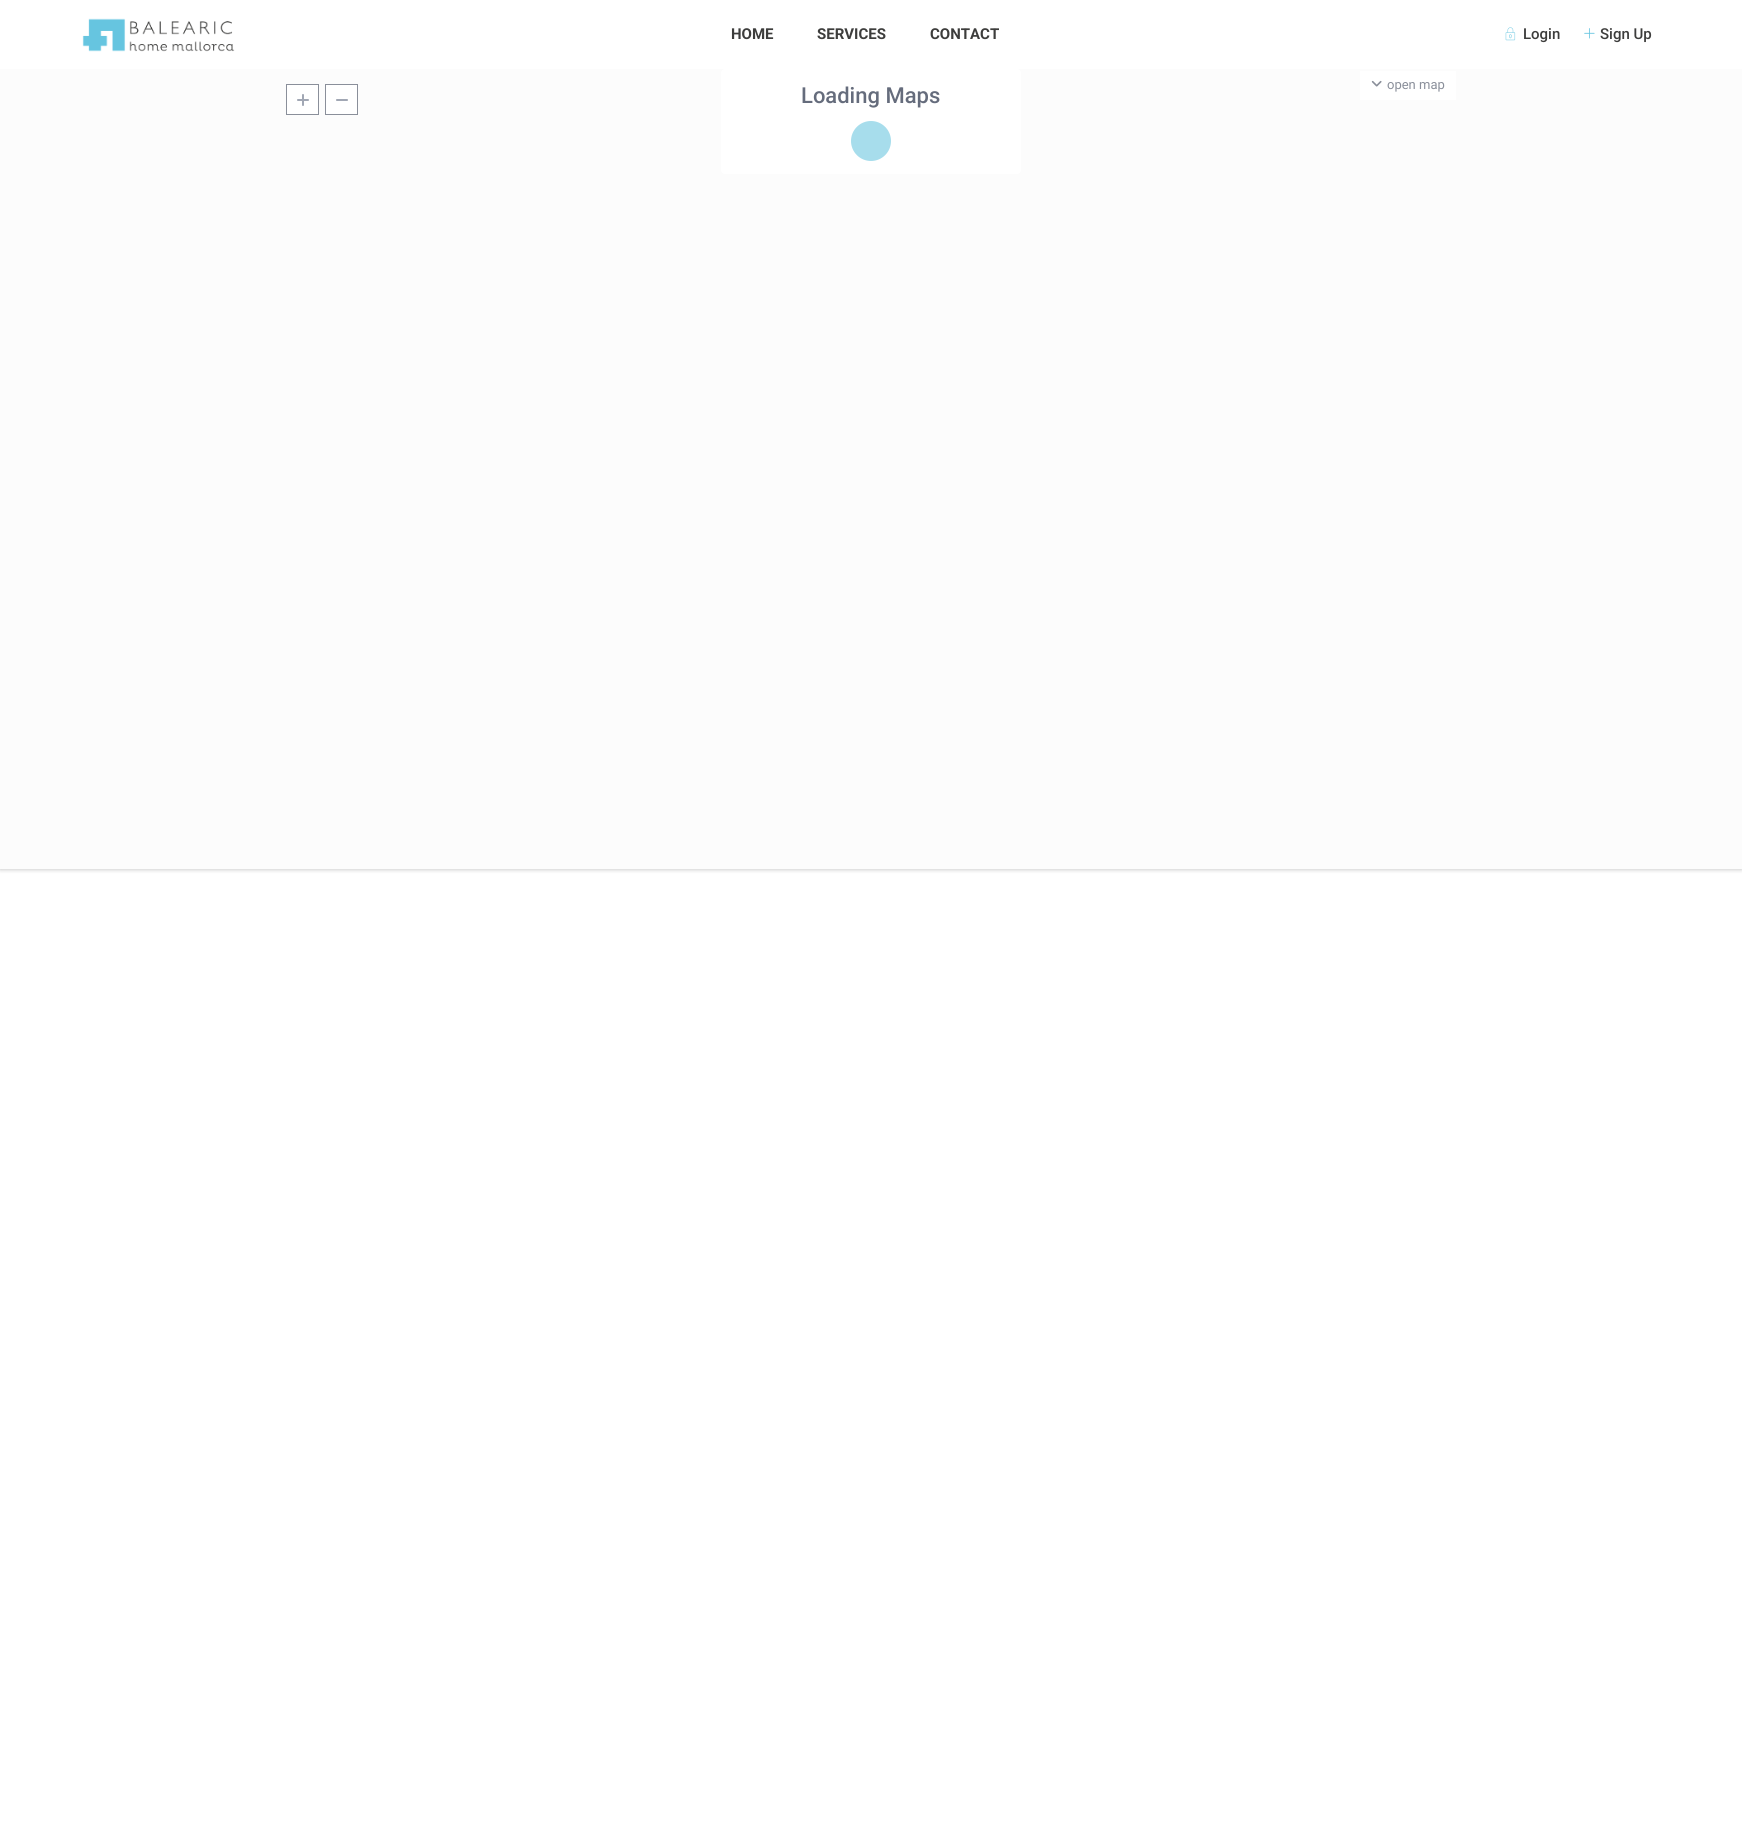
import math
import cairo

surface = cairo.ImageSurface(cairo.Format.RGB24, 1742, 1836)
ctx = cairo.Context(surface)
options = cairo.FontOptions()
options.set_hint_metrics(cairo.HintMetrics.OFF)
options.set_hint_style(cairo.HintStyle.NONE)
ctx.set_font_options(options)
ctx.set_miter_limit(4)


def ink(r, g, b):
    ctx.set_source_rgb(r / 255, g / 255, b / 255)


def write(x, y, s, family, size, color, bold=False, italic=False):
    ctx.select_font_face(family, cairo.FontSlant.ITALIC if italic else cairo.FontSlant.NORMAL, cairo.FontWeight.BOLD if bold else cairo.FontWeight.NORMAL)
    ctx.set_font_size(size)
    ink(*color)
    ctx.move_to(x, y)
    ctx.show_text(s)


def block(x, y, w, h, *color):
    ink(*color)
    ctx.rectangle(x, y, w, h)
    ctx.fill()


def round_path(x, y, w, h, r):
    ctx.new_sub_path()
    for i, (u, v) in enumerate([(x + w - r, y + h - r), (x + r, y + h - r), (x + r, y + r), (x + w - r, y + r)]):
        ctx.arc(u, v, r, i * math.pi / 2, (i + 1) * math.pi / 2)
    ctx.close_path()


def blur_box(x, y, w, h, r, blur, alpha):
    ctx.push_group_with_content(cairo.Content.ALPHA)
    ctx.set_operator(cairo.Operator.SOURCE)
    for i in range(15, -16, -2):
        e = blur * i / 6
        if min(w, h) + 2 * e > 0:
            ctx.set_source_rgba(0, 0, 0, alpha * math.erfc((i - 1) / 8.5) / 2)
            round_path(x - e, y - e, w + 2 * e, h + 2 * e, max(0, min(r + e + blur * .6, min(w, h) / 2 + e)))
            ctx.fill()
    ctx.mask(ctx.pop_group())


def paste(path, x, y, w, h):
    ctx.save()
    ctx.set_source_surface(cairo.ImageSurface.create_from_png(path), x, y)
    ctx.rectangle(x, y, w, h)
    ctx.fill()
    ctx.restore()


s1 = dict(family="Roboto", size=15, color=(61, 61, 60), bold=True)
s2 = dict(family="Roboto Medium", size=15, color=(61, 61, 60))
s3 = dict(family="Roboto Medium", size=22, color=(101, 108, 124))
s4 = dict(family="Roboto", size=13, color=(138, 143, 154))

ink(255, 255, 255)
ctx.paint()
ink(0, 0, 0)
blur_box(0, 1, 1742, 869, 0, 2, 0.2)
block(0, 69, 1742, 800, 252, 252, 252)
block(0, 0, 1742, 69, 255, 255, 255)
paste("pic1.png", 82, 18, 153, 34)
write(731, 39, "HOME", **s1)
write(817, 39, "SERVICES", **s1)
write(930, 39, "CONTACT", **s1)
paste("pic2.png", 1505, 27, 11, 14)
write(1523, 39, "Login", **s2)
paste("pic3.png", 1584, 28, 11, 11)
write(1600, 39, "Sign Up", **s2)
block(287, 85, 31, 29, 255, 255, 255)
paste("pic4.png", 297, 94, 12, 12)
ctx.rectangle(286.5, 84.5, 32, 30)
ink(138, 143, 154)
ctx.set_line_width(1)
ctx.stroke()
block(326, 85, 31, 29, 255, 255, 255)
paste("pic5.png", 336, 99, 12, 2)
ctx.rectangle(325.5, 84.5, 32, 30)
ink(138, 143, 154)
ctx.stroke()
ink(255, 255, 255)
round_path(721, 69, 300, 105, 4)
ctx.fill()
write(801, 103, "Loading Maps", **s3)
ink(167, 221, 236)
ctx.new_path()
ctx.arc(871, 141, 20, 0, 2 * math.pi)
ctx.fill()
block(1360, 71, 96, 29, 255, 255, 255)
paste("pic6.png", 1371, 80, 11, 7)
write(1387, 89, "open map", **s4)
surface.write_to_png("screenshot.png")
